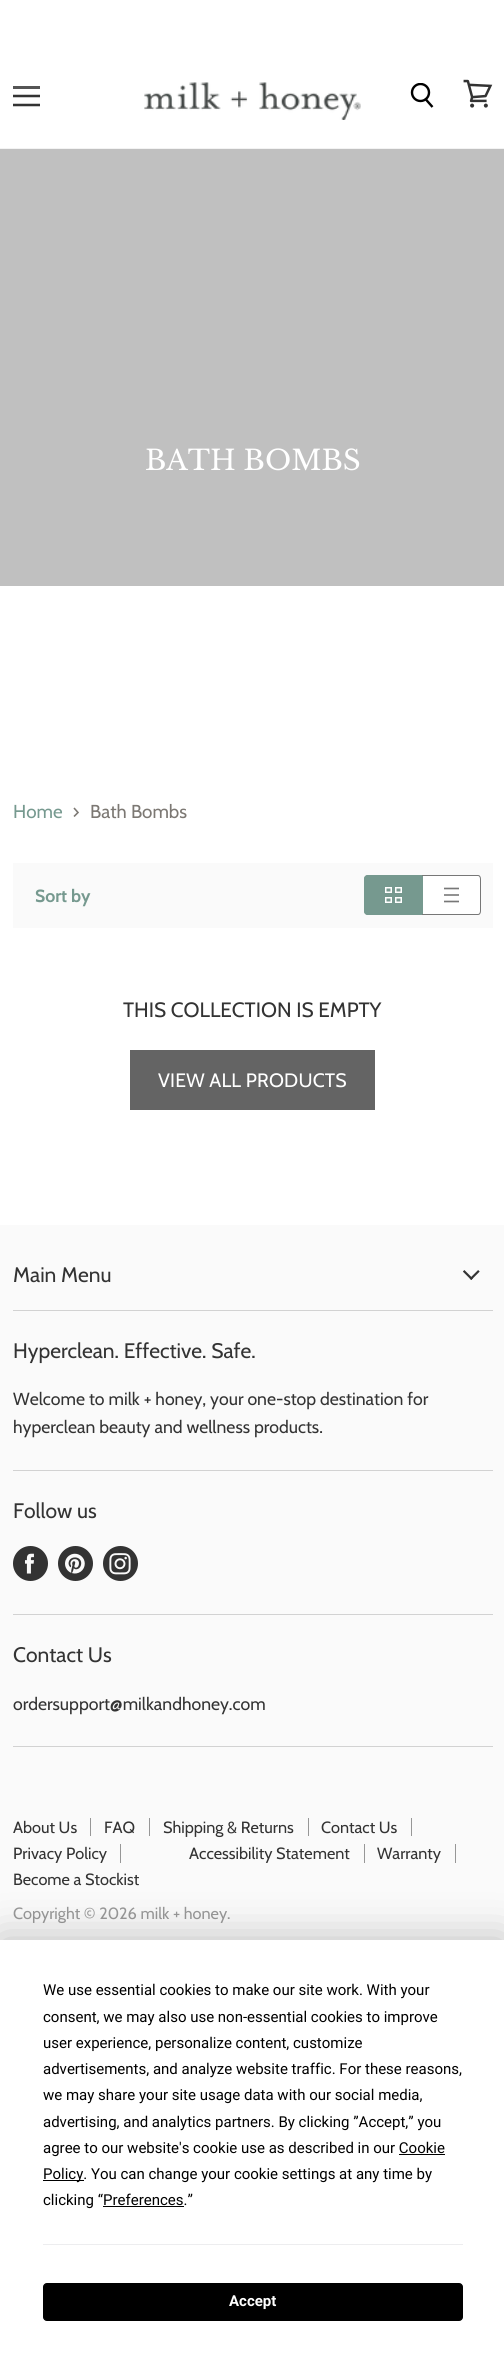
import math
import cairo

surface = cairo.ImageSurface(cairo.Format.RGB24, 504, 2358)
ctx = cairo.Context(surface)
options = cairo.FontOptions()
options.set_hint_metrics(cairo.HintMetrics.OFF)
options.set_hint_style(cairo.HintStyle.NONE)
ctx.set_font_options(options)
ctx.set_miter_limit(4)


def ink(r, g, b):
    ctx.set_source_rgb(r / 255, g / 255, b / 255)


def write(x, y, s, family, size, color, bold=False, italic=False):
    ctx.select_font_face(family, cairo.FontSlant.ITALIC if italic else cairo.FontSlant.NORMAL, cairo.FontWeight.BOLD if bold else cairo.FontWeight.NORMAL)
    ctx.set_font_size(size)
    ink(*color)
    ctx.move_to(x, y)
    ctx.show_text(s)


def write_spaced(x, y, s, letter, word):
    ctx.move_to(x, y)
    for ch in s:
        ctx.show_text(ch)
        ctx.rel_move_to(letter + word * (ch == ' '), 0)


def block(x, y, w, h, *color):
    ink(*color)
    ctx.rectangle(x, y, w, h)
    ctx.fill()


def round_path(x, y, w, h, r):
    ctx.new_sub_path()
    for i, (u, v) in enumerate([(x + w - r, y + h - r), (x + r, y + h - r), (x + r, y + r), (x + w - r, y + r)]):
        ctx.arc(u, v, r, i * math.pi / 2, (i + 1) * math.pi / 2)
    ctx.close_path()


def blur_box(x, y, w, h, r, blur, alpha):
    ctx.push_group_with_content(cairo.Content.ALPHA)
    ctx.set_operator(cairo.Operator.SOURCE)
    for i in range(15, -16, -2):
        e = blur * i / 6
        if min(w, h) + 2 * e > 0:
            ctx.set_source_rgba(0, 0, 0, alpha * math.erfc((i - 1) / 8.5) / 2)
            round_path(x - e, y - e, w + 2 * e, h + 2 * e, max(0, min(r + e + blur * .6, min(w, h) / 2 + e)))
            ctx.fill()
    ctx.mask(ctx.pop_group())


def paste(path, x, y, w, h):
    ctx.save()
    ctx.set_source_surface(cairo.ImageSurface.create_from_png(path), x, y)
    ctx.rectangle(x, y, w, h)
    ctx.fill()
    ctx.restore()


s1 = dict(family="Libre Baskerville", size=27.75, color=(255, 255, 255))
s2 = dict(family="Cabin", size=18.75, color=(118, 153, 143))
s3 = dict(family="Cabin", size=18.75, color=(124, 120, 115))
s4 = dict(family="Cabin", size=17.6, color=(118, 153, 143), bold=True)
s5 = dict(family="Cabin", size=20.75, color=(51, 51, 51))
s6 = dict(family="Cabin", size=21, color=(51, 51, 51))
s7 = dict(family="Cabin", size=17.6, color=(51, 51, 51))
s8 = dict(family="Cabin", size=16.25, color=(51, 51, 51))
s9 = dict(family="Cabin", size=16.25, color=(153, 153, 153))
s10 = dict(family="Roboto", size=15, color=(0, 0, 0))
s11 = dict(family="Roboto", size=15, color=(255, 255, 255), bold=True)

ink(255, 255, 255)
ctx.paint()
block(13, 86, 27, 3, 85, 85, 85)
ctx.save()
ctx.rectangle(13, 85, 27, 23)
ctx.clip()
ctx.new_path()
ctx.move_to(39, 96)
ctx.line_to(14, 96)
ctx.move_to(39, 105)
ctx.line_to(14, 105)
ink(51, 51, 51)
ctx.set_line_width(2.5)
ctx.set_line_cap(cairo.LineCap.SQUARE)
ctx.set_line_join(cairo.LineJoin.ROUND)
ctx.stroke()
ctx.restore()
paste("pic1.png", 144, 82, 217, 38)
ctx.new_path()
ctx.move_to(425, 98.5)
ctx.line_to(432.5, 107)
ink(0, 0, 0)
ctx.set_line_width(2.4)
ctx.stroke()
ctx.save()
ctx.rectangle(410, 83, 25, 26)
ctx.clip()
ctx.arc(420.5, 92.5, 8.5, 0, 2 * math.pi)
ctx.stroke()
ctx.restore()
paste("pic2.png", 463, 79, 30, 29)
block(0, 148, 504, 1, 243, 243, 243)
block(0, 149, 504, 437, 192, 192, 192)
write(145, 470, "BATH BOMBS", **s1)
write(13, 818, "Home", **s2)
ctx.new_path()
ctx.move_to(74, 816.5)
ctx.line_to(78, 812.5)
ctx.line_to(74, 808)
ink(124, 120, 115)
ctx.set_line_width(1.6)
ctx.stroke()
write(90, 818, "Bath Bombs", **s3)
block(13, 863, 480, 65, 250, 250, 250)
write(35, 902, "Sort by", **s4)
ctx.new_path()
ctx.move_to(368, 875)
ctx.line_to(423, 875)
ctx.line_to(423, 915)
ctx.line_to(368, 915)
ctx.curve_to(366, 915, 364, 913, 364, 911)
ctx.line_to(364, 879)
ctx.curve_to(364, 877, 366, 875, 368, 875)
ctx.close_path()
ctx.fill()
ctx.set_fill_rule(cairo.FillRule.EVEN_ODD)
ctx.new_path()
ctx.move_to(368, 875)
ctx.line_to(422, 875)
ctx.line_to(422, 915)
ctx.line_to(368, 915)
ctx.curve_to(365, 915, 364, 913, 364, 911)
ctx.line_to(364, 879)
ctx.curve_to(364, 877, 365, 875, 368, 875)
ctx.close_path()
ctx.move_to(368, 876)
ctx.line_to(422, 876)
ctx.line_to(422, 914)
ctx.line_to(368, 914)
ctx.curve_to(366, 914, 365, 913, 365, 911)
ctx.line_to(365, 879)
ctx.curve_to(365, 877, 366, 876, 368, 876)
ctx.close_path()
ctx.fill()
paste("pic3.png", 385, 887, 17, 16)
ink(255, 255, 255)
ctx.new_path()
ctx.move_to(423, 875)
ctx.line_to(477, 875)
ctx.curve_to(479, 875, 481, 877, 481, 879)
ctx.line_to(481, 911)
ctx.curve_to(481, 913, 479, 915, 477, 915)
ctx.line_to(423, 915)
ctx.close_path()
ctx.fill()
ink(119, 119, 119)
ctx.new_path()
ctx.move_to(422, 875)
ctx.line_to(478, 875)
ctx.curve_to(480, 875, 481, 877, 481, 879)
ctx.line_to(481, 911)
ctx.curve_to(481, 913, 480, 915, 478, 915)
ctx.line_to(422, 915)
ctx.close_path()
ctx.move_to(422, 876)
ctx.line_to(478, 876)
ctx.curve_to(479, 876, 480, 877, 480, 879)
ctx.line_to(480, 911)
ctx.curve_to(480, 913, 479, 914, 478, 914)
ctx.line_to(422, 914)
ctx.close_path()
ctx.fill()
ctx.new_path()
ctx.move_to(444, 888.5)
ctx.line_to(459, 888.5)
ctx.move_to(444, 901.5)
ctx.line_to(459, 901.5)
ctx.set_line_join(cairo.LineJoin.ROUND)
ctx.stroke()
block(444, 894, 15, 2, 146, 146, 146)
write(123, 1017, "THIS COLLECTION IS EMPTY", **s5)
block(130, 1050, 245, 60, 100, 100, 100)
ctx.set_font_size(19.4)
ink(255, 255, 255)
write_spaced(158, 1087, "VIEW ALL PRODUCTS", 0.2, 0)
block(0, 1225, 504, 715, 250, 250, 250)
block(13, 1310, 480, 1, 210, 210, 210)
write(13, 1282, "Main Menu", **s6)
paste("pic4.png", 463, 1270, 17, 10)
block(13, 1470, 480, 1, 210, 210, 210)
write(13, 1358, "Hyperclean. Effective. Safe.", **s6)
write(13, 1405, "Welcome to milk + honey, your one-stop destination for", **s7)
write(13, 1433, "hyperclean beauty and wellness products.", **s7)
block(13, 1614, 480, 1, 210, 210, 210)
write(13, 1518, "Follow us", **s6)
ctx.new_path()
ctx.arc(30.5, 1563.5, 17.5, 0, 2 * math.pi)
ctx.fill()
paste("pic5.png", 25, 1553, 9, 21)
ctx.arc(75.5, 1563.5, 17.5, 0, 2 * math.pi)
ctx.fill()
paste("pic6.png", 65, 1553, 20, 21)
ctx.arc(120.5, 1563.5, 17.5, 0, 2 * math.pi)
ctx.fill()
paste("pic7.png", 109, 1553, 22, 22)
block(13, 1746, 480, 1, 210, 210, 210)
write(13, 1662, "Contact Us", **s6)
write(13, 1710, "ordersupport@milkandhoney.com", **s7)
block(90, 1818, 1, 18, 151, 151, 151)
write(13, 1833, "About Us", **s8)
block(149, 1818, 1, 18, 151, 151, 151)
write(104, 1833, "FAQ", **s8)
block(308, 1818, 1, 18, 151, 151, 151)
write(163, 1833, "Shipping & Returns", **s8)
block(411, 1818, 1, 18, 151, 151, 151)
write(321, 1833, "Contact Us", **s8)
block(120, 1844, 1, 19, 151, 151, 151)
write(13, 1859, "Privacy Policy", **s8)
block(364, 1844, 1, 19, 151, 151, 151)
write(189, 1859, "Accessibility Statement", **s8)
block(455, 1844, 1, 19, 151, 151, 151)
write(377, 1859, "Warranty", **s8)
write(13, 1885, "Become a Stockist", **s8)
write(13, 1919, "Copyright © 2026 milk + honey.", **s9)
ink(0, 0, 0)
blur_box(0, 1940, 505, 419, 0, 22, 0.25)
block(0, 1940, 504, 418, 255, 255, 255)
write(43, 1995, "We use essential cookies to make our site work. With your", **s10)
write(43, 2022, "consent, we may also use non-essential cookies to improve", **s10)
write(43, 2048, "user experience, personalize content, customize", **s10)
write(43, 2074, "advertisements, and analyze website traffic. For these reasons,", **s10)
write(43, 2100, "we may share your site usage data with our social media,", **s10)
write(43, 2127, "advertising, and analytics partners. By clicking ”Accept,” you", **s10)
write(43, 2153, "agree to our website's cookie use as described in our Cookie", **s10)
block(43, 2180, 41, 1, 0, 0, 0)
write(43, 2179, "Policy. You can change your cookie settings at any time by", **s10)
block(399, 2154, 46, 1, 0, 0, 0)
write(43, 2205, "clicking “Preferences.”", **s10)
block(103, 2206, 81, 1, 0, 0, 0)
block(43, 2244, 420, 1, 237, 237, 239)
ink(0, 0, 0)
round_path(43.5, 2283.5, 419, 37, 3.5)
ctx.fill_preserve()
ctx.set_line_width(1)
ctx.set_line_join(cairo.LineJoin.MITER)
ctx.stroke()
write(229, 2306, "Accept", **s11)
surface.write_to_png("screenshot.png")
